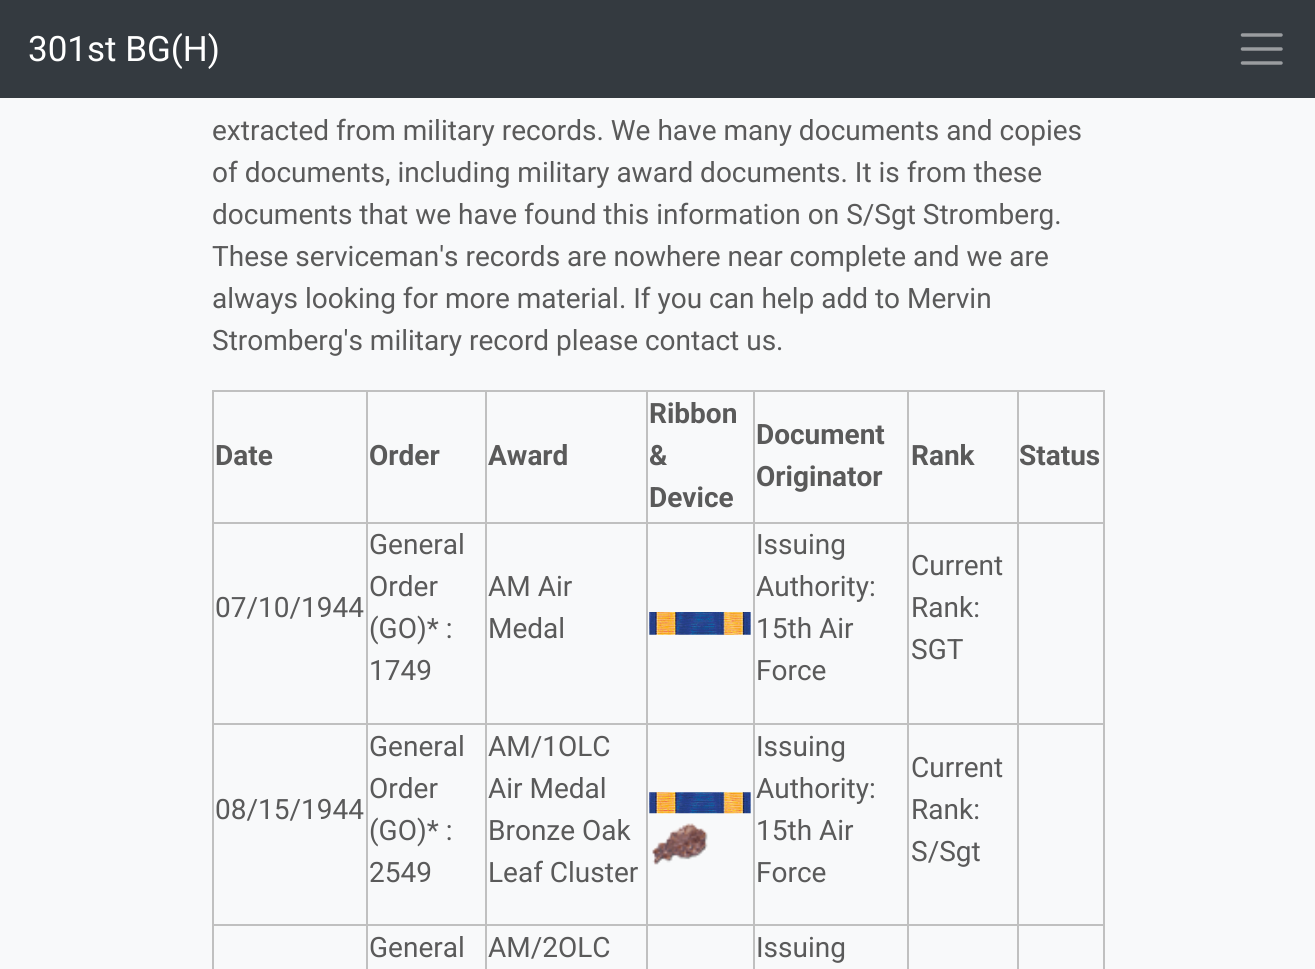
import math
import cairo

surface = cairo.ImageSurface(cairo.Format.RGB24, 1315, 969)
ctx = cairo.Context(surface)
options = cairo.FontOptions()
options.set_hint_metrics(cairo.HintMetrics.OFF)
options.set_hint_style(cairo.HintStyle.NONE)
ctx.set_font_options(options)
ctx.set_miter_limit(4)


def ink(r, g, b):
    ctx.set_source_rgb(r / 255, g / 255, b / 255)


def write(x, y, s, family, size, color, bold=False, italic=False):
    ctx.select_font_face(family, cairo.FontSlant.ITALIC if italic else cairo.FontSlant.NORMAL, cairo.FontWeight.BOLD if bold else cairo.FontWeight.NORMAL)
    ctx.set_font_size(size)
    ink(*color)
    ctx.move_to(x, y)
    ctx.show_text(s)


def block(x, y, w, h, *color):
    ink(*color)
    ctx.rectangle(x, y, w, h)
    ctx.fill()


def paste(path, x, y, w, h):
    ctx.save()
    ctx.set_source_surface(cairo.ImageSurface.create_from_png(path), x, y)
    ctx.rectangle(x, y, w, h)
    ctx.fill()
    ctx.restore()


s1 = dict(family="Roboto", size=35, color=(255, 255, 255))
s2 = dict(family="Roboto", size=28, color=(90, 90, 90))
s3 = dict(family="Roboto", size=28, color=(90, 90, 90), bold=True)

ink(248, 249, 250)
ctx.paint()
block(0, 0, 1315, 98, 52, 58, 64)
write(28, 61, "301st BG(H)", **s1)
ctx.new_path()
ctx.move_to(1242.5, 35)
ctx.line_to(1281, 35)
ctx.move_to(1242.5, 49)
ctx.line_to(1281, 49)
ctx.move_to(1242.5, 63)
ctx.line_to(1281, 63)
ink(154, 157, 160)
ctx.set_line_width(3.5)
ctx.set_line_cap(cairo.LineCap.ROUND)
ctx.stroke()
write(212, 140, "extracted from military records. We have many documents and copies", **s2)
write(212, 182, "of documents, including military award documents. It is from these", **s2)
write(212, 224, "documents that we have found this information on S/Sgt Stromberg.", **s2)
write(212, 266, "These serviceman's records are nowhere near complete and we are", **s2)
write(212, 308, "always looking for more material. If you can help add to Mervin", **s2)
write(212, 350, "Stromberg's military record please contact us.", **s2)
block(212, 390, 892, 2, 192, 192, 192)
block(1103, 390, 2, 579, 192, 192, 192)
block(212, 390, 2, 579, 192, 192, 192)
write(215, 465, "Date", **s3)
block(1017, 522, 87, 2, 192, 192, 192)
block(1017, 723, 87, 2, 192, 192, 192)
block(1017, 924, 87, 2, 192, 192, 192)
block(1017, 924, 2, 45, 192, 192, 192)
block(907, 924, 112, 2, 192, 192, 192)
block(1017, 723, 2, 203, 192, 192, 192)
block(907, 723, 112, 2, 192, 192, 192)
block(1017, 522, 2, 203, 192, 192, 192)
block(907, 522, 112, 2, 192, 192, 192)
block(907, 924, 2, 45, 192, 192, 192)
block(753, 924, 155, 2, 192, 192, 192)
block(907, 723, 2, 203, 192, 192, 192)
block(753, 723, 155, 2, 192, 192, 192)
block(907, 522, 2, 203, 192, 192, 192)
block(753, 522, 155, 2, 192, 192, 192)
block(753, 924, 2, 45, 192, 192, 192)
block(646, 924, 108, 2, 192, 192, 192)
block(753, 723, 2, 203, 192, 192, 192)
block(646, 723, 108, 2, 192, 192, 192)
block(753, 522, 2, 203, 192, 192, 192)
block(646, 522, 108, 2, 192, 192, 192)
block(646, 924, 2, 45, 192, 192, 192)
block(485, 924, 163, 2, 192, 192, 192)
block(646, 723, 2, 203, 192, 192, 192)
block(485, 723, 163, 2, 192, 192, 192)
block(646, 522, 2, 203, 192, 192, 192)
block(485, 522, 163, 2, 192, 192, 192)
block(485, 924, 2, 45, 192, 192, 192)
block(366, 924, 121, 2, 192, 192, 192)
block(485, 723, 2, 203, 192, 192, 192)
block(366, 723, 121, 2, 192, 192, 192)
block(485, 522, 2, 203, 192, 192, 192)
block(366, 522, 121, 2, 192, 192, 192)
block(366, 924, 2, 45, 192, 192, 192)
block(212, 924, 156, 2, 192, 192, 192)
block(366, 723, 2, 203, 192, 192, 192)
block(212, 723, 156, 2, 192, 192, 192)
block(366, 522, 2, 203, 192, 192, 192)
block(212, 522, 156, 2, 192, 192, 192)
block(366, 390, 2, 133, 192, 192, 192)
write(369, 465, "Order", **s3)
block(485, 390, 2, 133, 192, 192, 192)
write(488, 465, "Award", **s3)
block(646, 390, 2, 133, 192, 192, 192)
write(649, 423, "Ribbon", **s3)
write(649, 465, "&", **s3)
write(649, 507, "Device", **s3)
block(753, 390, 2, 133, 192, 192, 192)
write(756, 444, "Document", **s3)
write(756, 486, "Originator", **s3)
block(907, 390, 2, 133, 192, 192, 192)
write(911, 465, "Rank", **s3)
block(1017, 390, 2, 133, 192, 192, 192)
write(1019, 465, "Status", **s3)
write(215, 617, "07/10/1944", **s2)
write(369, 554, "General", **s2)
write(369, 596, "Order", **s2)
write(369, 638, "(GO)* :", **s2)
write(369, 680, "1749", **s2)
write(488, 596, "AM Air", **s2)
write(488, 638, "Medal", **s2)
paste("pic1.png", 649, 612, 102, 23)
write(756, 554, "Issuing", **s2)
write(756, 596, "Authority:", **s2)
write(756, 638, "15th Air", **s2)
write(756, 680, "Force", **s2)
write(911, 575, "Current", **s2)
write(911, 617, "Rank:", **s2)
write(911, 659, "SGT", **s2)
write(215, 819, "08/15/1944", **s2)
write(369, 756, "General", **s2)
write(369, 798, "Order", **s2)
write(369, 840, "(GO)* :", **s2)
write(369, 882, "2549", **s2)
write(488, 756, "AM/1OLC", **s2)
write(488, 798, "Air Medal", **s2)
write(488, 840, "Bronze Oak", **s2)
write(488, 882, "Leaf Cluster", **s2)
paste("pic2.png", 649, 792, 102, 22)
paste("pic3.png", 652, 823, 56, 42)
write(756, 756, "Issuing", **s2)
write(756, 798, "Authority:", **s2)
write(756, 840, "15th Air", **s2)
write(756, 882, "Force", **s2)
write(911, 777, "Current", **s2)
write(911, 819, "Rank:", **s2)
write(911, 861, "S/Sgt", **s2)
write(369, 957, "General", **s2)
write(488, 957, "AM/2OLC", **s2)
write(756, 957, "Issuing", **s2)
surface.write_to_png("screenshot.png")
